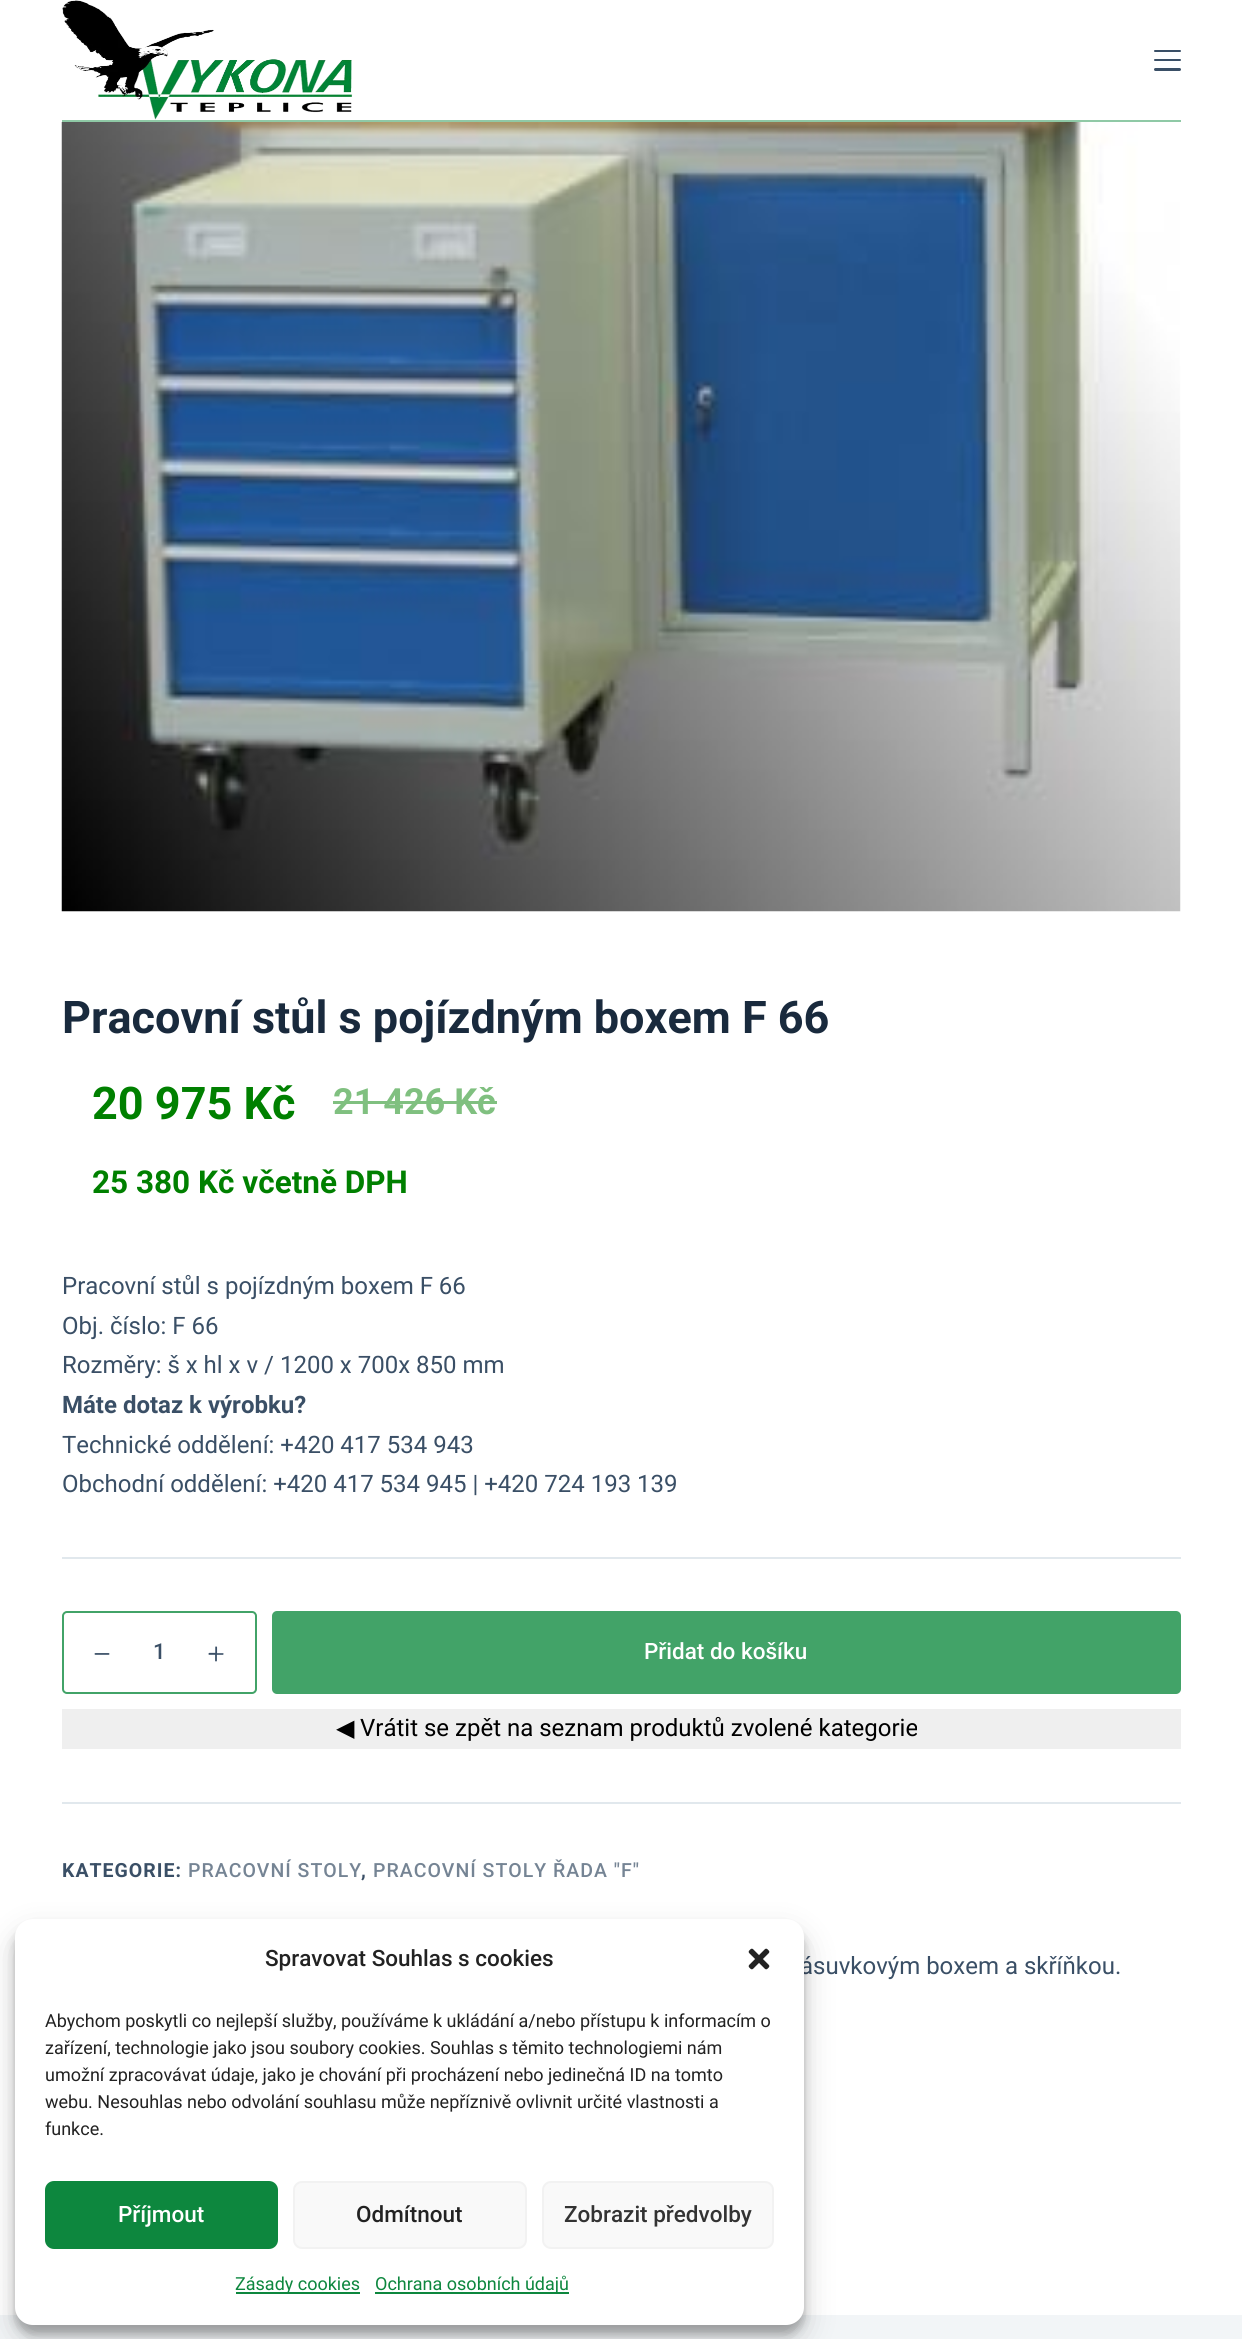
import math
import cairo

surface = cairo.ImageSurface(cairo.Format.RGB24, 1242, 2339)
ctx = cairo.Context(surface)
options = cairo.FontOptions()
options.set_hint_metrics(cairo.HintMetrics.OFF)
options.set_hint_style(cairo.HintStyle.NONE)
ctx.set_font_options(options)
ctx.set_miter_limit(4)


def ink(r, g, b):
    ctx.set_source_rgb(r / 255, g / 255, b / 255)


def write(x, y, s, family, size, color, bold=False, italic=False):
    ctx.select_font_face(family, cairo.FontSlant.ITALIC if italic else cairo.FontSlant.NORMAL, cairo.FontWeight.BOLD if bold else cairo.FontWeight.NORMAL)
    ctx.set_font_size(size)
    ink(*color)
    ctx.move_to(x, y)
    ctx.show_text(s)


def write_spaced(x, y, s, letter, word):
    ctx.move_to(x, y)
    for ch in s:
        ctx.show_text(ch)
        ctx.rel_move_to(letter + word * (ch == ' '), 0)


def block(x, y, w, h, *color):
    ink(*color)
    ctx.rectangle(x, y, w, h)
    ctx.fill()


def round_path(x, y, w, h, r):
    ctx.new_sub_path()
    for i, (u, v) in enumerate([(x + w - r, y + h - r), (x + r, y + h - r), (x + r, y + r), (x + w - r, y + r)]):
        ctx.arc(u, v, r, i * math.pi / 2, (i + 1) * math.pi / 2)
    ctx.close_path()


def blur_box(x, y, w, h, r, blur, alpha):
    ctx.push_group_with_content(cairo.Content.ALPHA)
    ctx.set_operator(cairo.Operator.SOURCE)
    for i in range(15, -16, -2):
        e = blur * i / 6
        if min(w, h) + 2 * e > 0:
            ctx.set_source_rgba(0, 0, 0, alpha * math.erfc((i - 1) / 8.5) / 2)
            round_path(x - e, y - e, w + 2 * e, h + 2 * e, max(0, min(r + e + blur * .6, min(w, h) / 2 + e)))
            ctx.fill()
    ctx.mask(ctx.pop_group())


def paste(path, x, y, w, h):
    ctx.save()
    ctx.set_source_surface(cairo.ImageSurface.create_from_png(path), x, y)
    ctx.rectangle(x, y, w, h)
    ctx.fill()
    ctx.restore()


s1 = dict(family="Roboto", size=45, color=(25, 42, 61), bold=True)
s2 = dict(family="Roboto", size=45, color=(0, 128, 0), bold=True)
s3 = dict(family="Roboto", size=36, color=(128, 192, 128), bold=True)
s4 = dict(family="Roboto", size=31.5, color=(0, 128, 0), bold=True)
s5 = dict(family="Roboto", size=24, color=(58, 79, 102))
s6 = dict(family="Roboto", size=24, color=(58, 79, 102), bold=True)
s7 = dict(family="Roboto Medium", size=22, color=(58, 79, 102))
s8 = dict(family="Roboto Medium", size=22.5, color=(255, 255, 255))
s9 = dict(family="DejaVu Sans", size=24, color=(0, 0, 0))
s10 = dict(family="Roboto", size=24, color=(0, 0, 0))
s11 = dict(family="Roboto Medium", size=22.5, color=(34, 34, 34))
s12 = dict(family="Roboto", size=18, color=(34, 34, 34))
s13 = dict(family="Roboto Medium", size=22.5, color=(51, 51, 51))
s14 = dict(family="Roboto", size=18, color=(13, 135, 62))

ink(255, 255, 255)
ctx.paint()
block(62, 120, 1119, 2, 143, 201, 166)
paste("pic1.png", 62, 0, 291, 120)
ink(58, 79, 102)
round_path(1154, 50, 27, 2, 1)
ctx.fill()
round_path(1154, 59, 27, 2, 1)
ctx.fill()
round_path(1154, 68, 27, 3, 1.5)
ctx.fill()
paste("pic2.png", 61, 122, 1120, 790)
write(62, 1033, "Pracovní stůl s pojízdným boxem F 66", **s1)
write(92, 1119, "20 975 Kč", **s2)
write(333, 1114, "21 426 Kč", **s3)
block(333, 1101, 164, 3, 128, 192, 128)
write(92, 1193, "25 380 Kč včetně DPH", **s4)
write(62, 1294, "Pracovní stůl s pojízdným boxem F 66", **s5)
write(62, 1334, "Obj. číslo: F 66", **s5)
write(62, 1373, "Rozměry: š x hl x v / 1200 x 700x 850 mm", **s5)
write(62, 1413, "Máte dotaz k výrobku?", **s6)
write(62, 1453, "Technické oddělení: +420 417 534 943", **s5)
write(62, 1492, "Obchodní oddělení: +420 417 534 945 | +420 724 193 139", **s5)
block(62, 1557, 1119, 2, 225, 232, 237)
round_path(63, 1612, 193, 81, 4)
ink(66, 163, 104)
ctx.stroke()
paste("pic3.png", 94, 1653, 16, 2)
write(153, 1659, "1", **s7)
paste("pic4.png", 208, 1646, 16, 16)
ink(66, 163, 104)
round_path(272, 1611, 909, 83, 5)
ctx.fill()
write(644, 1659, "Přidat do košíku", **s8)
block(62, 1709, 1119, 40, 239, 239, 239)
write(336, 1736, "◀", **s9)
write(360, 1736, "Vrátit se zpět na seznam produktů zvolené kategorie", **s10)
block(62, 1802, 1119, 2, 225, 232, 237)
ctx.select_font_face("Roboto", cairo.FontSlant.NORMAL, cairo.FontWeight.BOLD)
ctx.set_font_size(19.5)
ink(58, 79, 102)
write_spaced(62, 1877, "KATEGORIE:", 1, 0)
ctx.select_font_face("Roboto Medium")
ink(117, 132, 148)
write_spaced(188, 1877, "PRACOVNÍ STOLY", 1, 0)
ctx.select_font_face("Roboto", cairo.FontSlant.NORMAL, cairo.FontWeight.BOLD)
ink(58, 79, 102)
write_spaced(361, 1877, ",", 1, 0)
ctx.select_font_face("Roboto Medium")
ink(117, 132, 148)
write_spaced(373, 1877, "PRACOVNÍ STOLY ŘADA \"F\"", 1, 0)
write(800, 1974, "ásuvkovým boxem a skříňkou.", **s5)
block(0, 2315, 1242, 24, 242, 245, 247)
ink(0, 0, 0)
blur_box(15, 1928, 789, 406, 18, 4.5, 0.23)
blur_box(15, 1934, 789, 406, 18, 15, 0.19)
ink(255, 255, 255)
round_path(15, 1919, 789, 406, 18)
ctx.fill()
write(265, 1966, "Spravovat Souhlas s cookies", **s11)
paste("pic5.png", 748, 1948, 22, 22)
write(45, 2027, "Abychom poskytli co nejlepší služby, používáme k ukládání a/nebo přístupu k informacím o", **s12)
write(45, 2054, "zařízení, technologie jako jsou soubory cookies. Souhlas s těmito technologiemi nám", **s12)
write(45, 2081, "umožní zpracovávat údaje, jako je chování při procházení nebo jedinečná ID na tomto", **s12)
write(45, 2108, "webu. Nesouhlas nebo odvolání souhlasu může nepříznivě ovlivnit určité vlastnosti a", **s12)
write(45, 2135, "funkce.", **s12)
ink(13, 135, 62)
round_path(46, 2182, 231, 66, 8)
ctx.fill_preserve()
ctx.stroke()
write(118, 2222, "Příjmout", **s8)
ink(249, 249, 249)
round_path(294, 2182, 232, 66, 8)
ctx.fill_preserve()
ink(242, 242, 242)
ctx.stroke()
write(356, 2222, "Odmítnout", **s11)
ink(249, 249, 249)
round_path(543, 2182, 230, 66, 8)
ctx.fill_preserve()
ink(242, 242, 242)
ctx.stroke()
write(564, 2222, "Zobrazit předvolby", **s13)
block(236, 2292, 124, 2, 13, 135, 62)
write(235, 2290, "Zásady cookies", **s14)
block(375, 2292, 194, 2, 13, 135, 62)
write(375, 2290, "Ochrana osobních údajů", **s14)
surface.write_to_png("screenshot.png")
